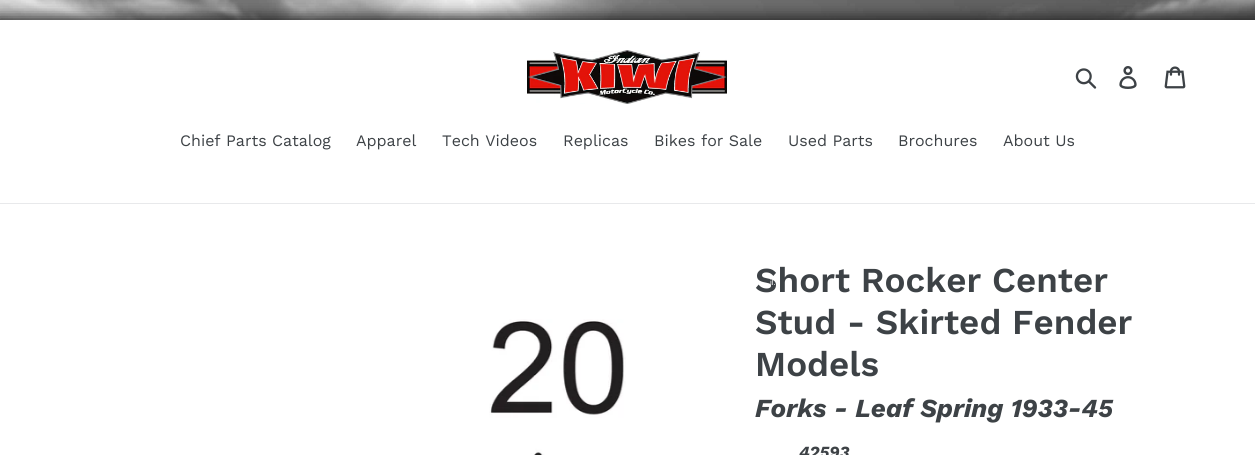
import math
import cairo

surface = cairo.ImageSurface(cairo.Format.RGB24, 1255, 455)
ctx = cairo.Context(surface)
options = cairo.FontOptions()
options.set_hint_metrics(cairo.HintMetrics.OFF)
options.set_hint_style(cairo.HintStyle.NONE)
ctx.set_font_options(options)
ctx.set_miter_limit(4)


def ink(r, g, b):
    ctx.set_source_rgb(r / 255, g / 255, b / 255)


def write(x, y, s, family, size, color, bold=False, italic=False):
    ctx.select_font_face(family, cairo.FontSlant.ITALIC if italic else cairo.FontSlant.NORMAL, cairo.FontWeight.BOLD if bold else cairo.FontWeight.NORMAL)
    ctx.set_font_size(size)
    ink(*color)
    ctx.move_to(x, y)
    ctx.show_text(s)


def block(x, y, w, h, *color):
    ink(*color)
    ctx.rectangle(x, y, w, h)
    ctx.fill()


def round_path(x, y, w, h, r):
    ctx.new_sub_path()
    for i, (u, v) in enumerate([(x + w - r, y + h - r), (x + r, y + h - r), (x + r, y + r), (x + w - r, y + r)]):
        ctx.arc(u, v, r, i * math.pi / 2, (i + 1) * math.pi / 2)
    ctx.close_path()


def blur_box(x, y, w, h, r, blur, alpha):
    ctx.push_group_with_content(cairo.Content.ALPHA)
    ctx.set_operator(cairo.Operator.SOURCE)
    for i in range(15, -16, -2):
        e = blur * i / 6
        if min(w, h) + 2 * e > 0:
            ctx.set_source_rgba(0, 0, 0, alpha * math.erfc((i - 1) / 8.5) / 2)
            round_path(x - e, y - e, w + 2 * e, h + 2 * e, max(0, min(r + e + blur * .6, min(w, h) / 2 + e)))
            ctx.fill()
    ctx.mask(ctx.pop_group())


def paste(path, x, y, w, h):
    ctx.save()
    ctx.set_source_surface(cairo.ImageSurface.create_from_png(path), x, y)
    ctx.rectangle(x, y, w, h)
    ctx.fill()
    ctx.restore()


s1 = dict(family="Work Sans", size=16, color=(61, 66, 70))
s2 = dict(family="Work Sans SemiBold", size=35, color=(61, 66, 70))
s3 = dict(family="Work Sans", size=26, color=(61, 66, 70), bold=True, italic=True)
s4 = dict(family="Work Sans", size=17, color=(61, 66, 70), bold=True, italic=True)
s5 = dict(family="Liberation Sans", size=8, color=(249, 249, 249))

ink(255, 255, 255)
ctx.paint()
paste("pic1.png", 0, 0, 1255, 20)
ink(33, 33, 33)
blur_box(-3, 17, 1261, 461, 0, 7.5, 1)
block(0, 20, 1255, 435, 255, 255, 255)
paste("pic2.png", 527, 50, 200, 54)
paste("pic3.png", 1075, 68, 22, 21)
paste("pic4.png", 1119, 66, 18, 23)
paste("pic5.png", 1164, 66, 22, 23)
block(0, 203, 1255, 1, 232, 233, 235)
write(180, 146, "Chief Parts Catalog", **s1)
write(356, 146, "Apparel", **s1)
write(442, 146, "Tech Videos", **s1)
write(563, 146, "Replicas", **s1)
write(654, 146, "Bikes for Sale", **s1)
write(788, 146, "Used Parts", **s1)
write(898, 146, "Brochures", **s1)
write(1003, 146, "About Us", **s1)
paste("pic6.png", 489, 319, 137, 136)
write(755, 292, "Short Rocker Center", **s2)
write(755, 334, "Stud - Skirted Fender", **s2)
write(755, 376, "Models", **s2)
write(755, 417, "Forks - Leaf Spring 1933-45", **s3)
write(799, 458, "42593", **s4)
write(770, 285, "il.", **s5)
surface.write_to_png("screenshot.png")
